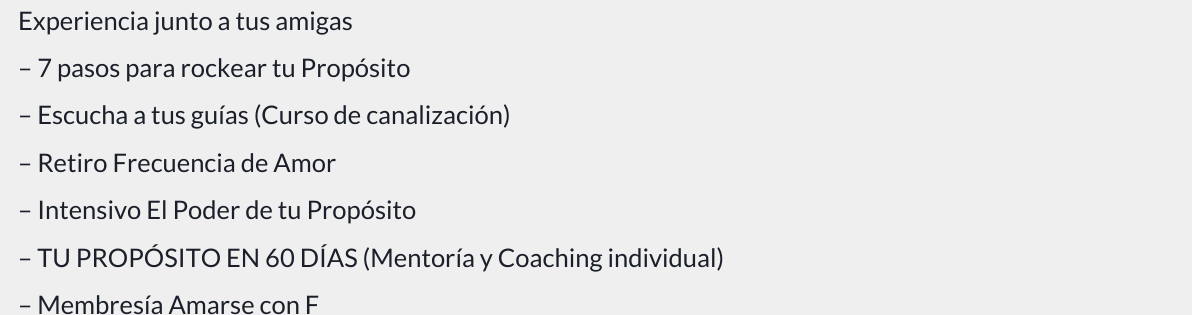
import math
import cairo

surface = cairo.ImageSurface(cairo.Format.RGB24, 1192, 315)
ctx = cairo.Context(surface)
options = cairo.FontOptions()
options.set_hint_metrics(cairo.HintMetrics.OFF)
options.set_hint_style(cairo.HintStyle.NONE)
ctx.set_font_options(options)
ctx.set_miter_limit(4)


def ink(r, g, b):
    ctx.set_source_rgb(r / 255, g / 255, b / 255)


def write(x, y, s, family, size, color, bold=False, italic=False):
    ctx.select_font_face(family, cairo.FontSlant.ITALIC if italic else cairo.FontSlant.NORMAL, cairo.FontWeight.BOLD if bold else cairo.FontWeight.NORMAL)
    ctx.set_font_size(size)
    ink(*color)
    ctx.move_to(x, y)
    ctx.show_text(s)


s1 = dict(family="Lato", size=25.55, color=(27, 31, 41))

ink(239, 239, 239)
ctx.paint()
write(18, 30, "Experiencia junto a tus amigas", **s1)
write(18, 77, "– 7 pasos para rockear tu Propósito", **s1)
write(18, 124, "– Escucha a tus guías (Curso de canalización)", **s1)
write(18, 172, "– Retiro Frecuencia de Amor", **s1)
write(18, 219, "– Intensivo El Poder de tu Propósito", **s1)
write(18, 267, "– TU PROPÓSITO EN 60 DÍAS (Mentoría y Coaching individual)", **s1)
write(18, 314, "– Membresía Amarse con F", **s1)
surface.write_to_png("screenshot.png")
